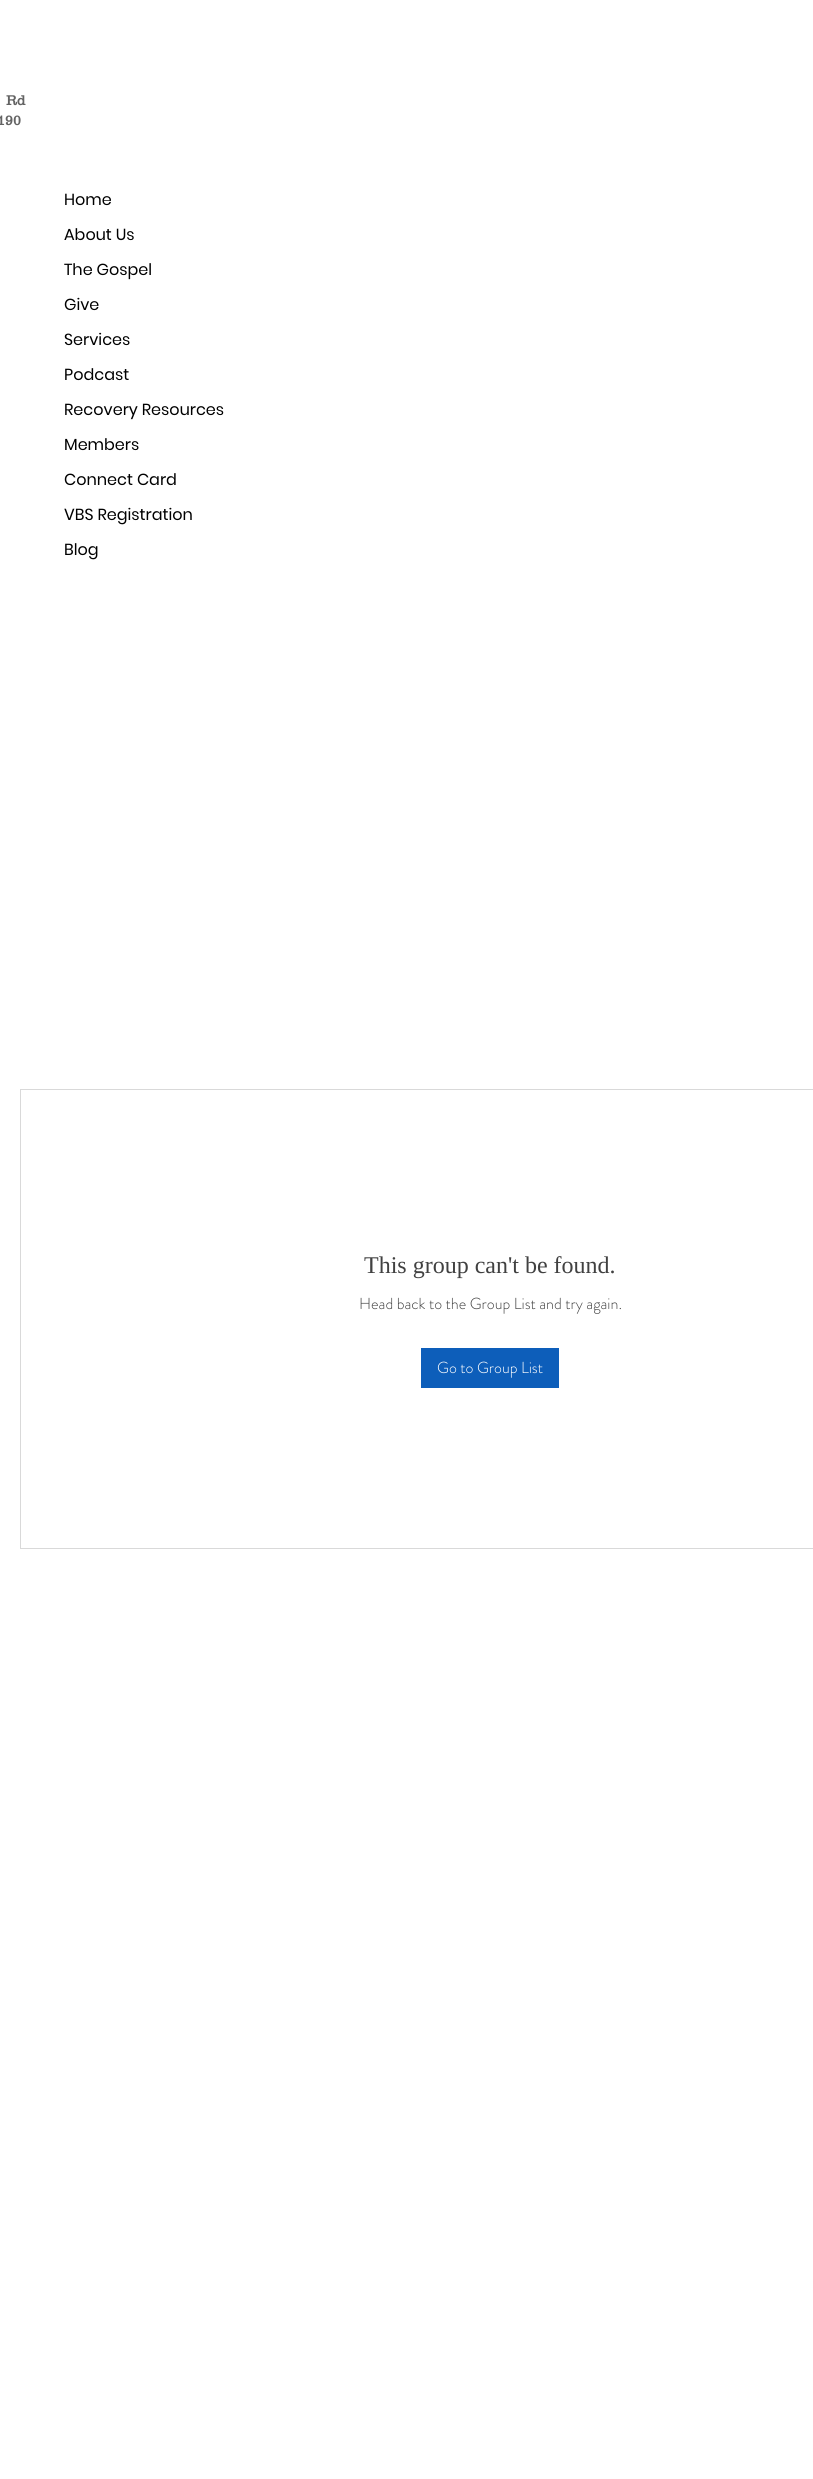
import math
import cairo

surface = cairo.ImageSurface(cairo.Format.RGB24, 813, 2479)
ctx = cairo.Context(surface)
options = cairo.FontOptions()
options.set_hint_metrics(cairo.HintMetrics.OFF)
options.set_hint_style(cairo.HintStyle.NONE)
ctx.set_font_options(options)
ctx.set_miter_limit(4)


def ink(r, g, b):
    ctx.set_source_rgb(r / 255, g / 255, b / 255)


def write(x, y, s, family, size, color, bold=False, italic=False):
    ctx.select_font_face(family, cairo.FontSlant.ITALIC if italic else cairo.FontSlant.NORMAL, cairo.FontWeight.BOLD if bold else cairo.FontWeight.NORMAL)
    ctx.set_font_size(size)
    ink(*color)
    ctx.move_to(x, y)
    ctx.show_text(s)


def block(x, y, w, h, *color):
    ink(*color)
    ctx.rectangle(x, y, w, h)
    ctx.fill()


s1 = dict(family="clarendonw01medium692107", size=14, color=(99, 99, 99), bold=True)
s2 = dict(family="Poppins", size=16, color=(0, 0, 0))
s3 = dict(family="Liberation Serif", size=24, color=(65, 65, 65))
s4 = dict(family="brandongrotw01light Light", size=16, color=(65, 65, 65))
s5 = dict(family="brandongrotw01light Light", size=16, color=(255, 255, 255))

ink(255, 255, 255)
ctx.paint()
write(6, 105, "Rd", **s1)
write(-3, 125, "190", **s1)
write(64, 205, "Home", **s2)
write(64, 240, "About Us", **s2)
write(64, 275, "The Gospel", **s2)
write(64, 310, "Give", **s2)
write(64, 345, "Services", **s2)
write(64, 380, "Podcast", **s2)
write(64, 415, "Recovery Resources", **s2)
write(64, 450, "Members", **s2)
write(64, 485, "Connect Card", **s2)
write(64, 520, "VBS Registration", **s2)
write(64, 555, "Blog", **s2)
ctx.rectangle(20.5, 1089.5, 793, 459)
ink(217, 217, 217)
ctx.set_line_width(1)
ctx.stroke()
write(364, 1273, "This group can't be found.", **s3)
write(359, 1309, "Head back to the Group List and try again.", **s4)
block(421, 1348, 138, 40, 13, 94, 186)
write(437, 1373, "Go to Group List", **s5)
surface.write_to_png("screenshot.png")
